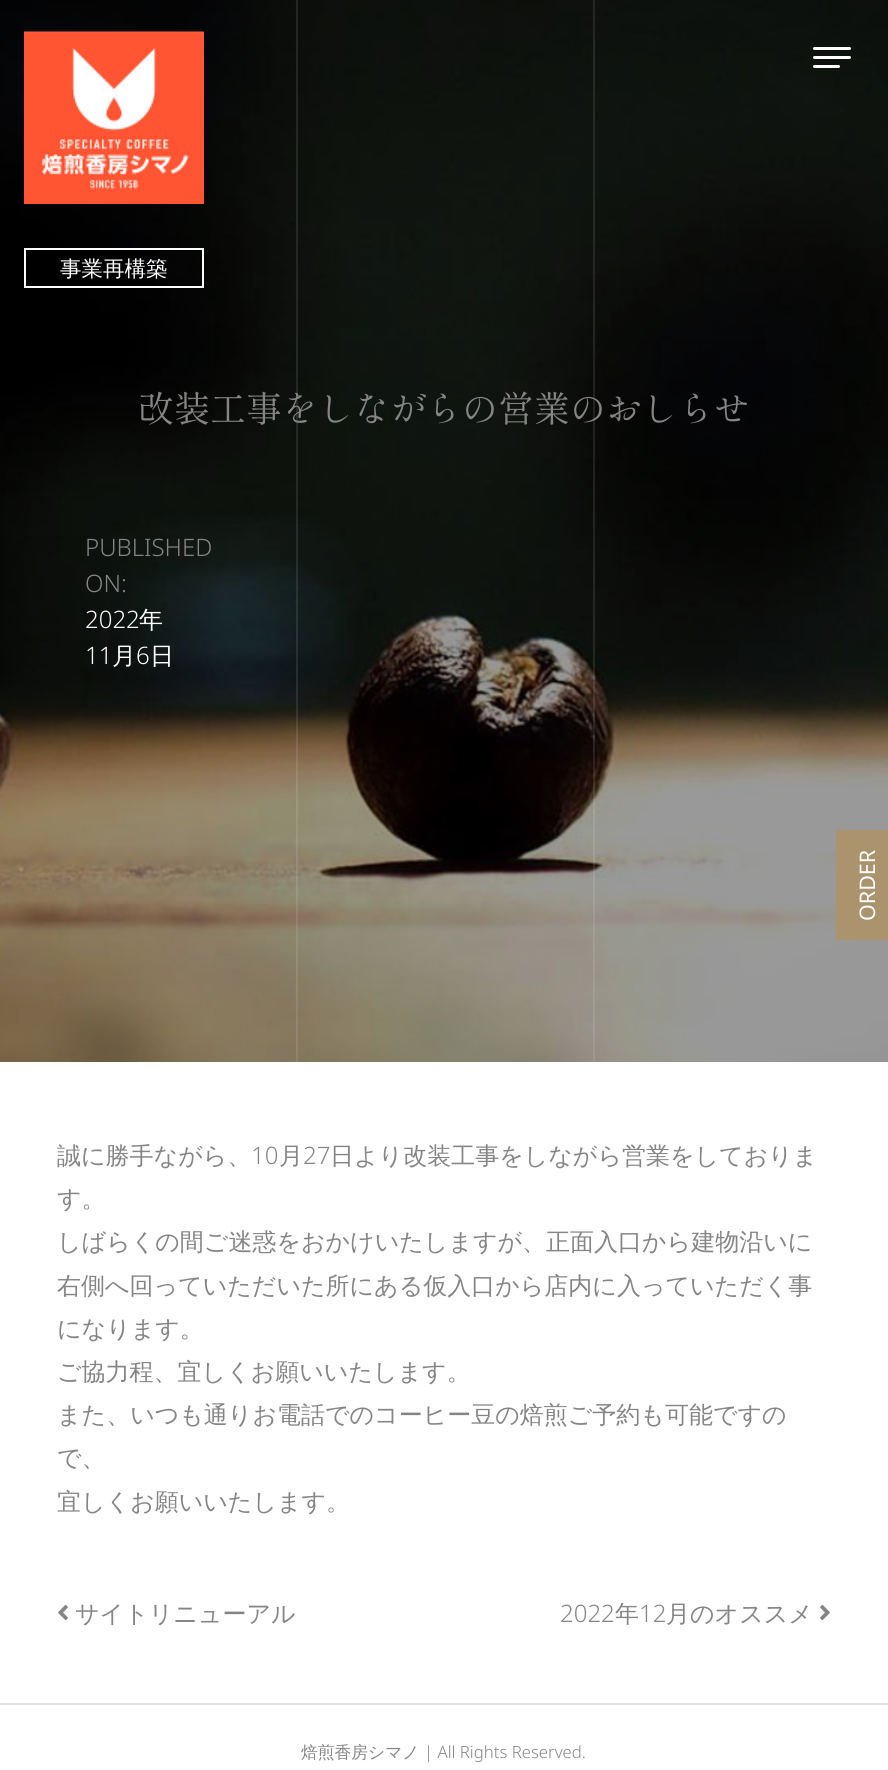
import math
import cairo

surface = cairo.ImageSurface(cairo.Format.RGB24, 888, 1770)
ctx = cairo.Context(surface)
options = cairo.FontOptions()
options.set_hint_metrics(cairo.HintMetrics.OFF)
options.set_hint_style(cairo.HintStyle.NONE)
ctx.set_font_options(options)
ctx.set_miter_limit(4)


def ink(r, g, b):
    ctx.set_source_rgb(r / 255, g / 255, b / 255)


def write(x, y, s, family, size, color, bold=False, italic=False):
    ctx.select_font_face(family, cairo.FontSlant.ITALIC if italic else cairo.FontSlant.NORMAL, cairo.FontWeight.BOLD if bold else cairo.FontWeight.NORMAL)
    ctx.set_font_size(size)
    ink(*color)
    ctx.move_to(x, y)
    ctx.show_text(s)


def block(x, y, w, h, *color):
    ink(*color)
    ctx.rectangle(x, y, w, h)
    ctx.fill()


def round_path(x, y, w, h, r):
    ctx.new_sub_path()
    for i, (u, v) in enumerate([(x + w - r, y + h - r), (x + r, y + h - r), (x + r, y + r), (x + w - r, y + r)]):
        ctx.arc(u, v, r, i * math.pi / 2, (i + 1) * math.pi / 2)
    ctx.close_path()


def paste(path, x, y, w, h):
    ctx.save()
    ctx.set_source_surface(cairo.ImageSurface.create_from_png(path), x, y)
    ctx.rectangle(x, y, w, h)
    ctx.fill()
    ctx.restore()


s1 = dict(family="WenQuanYi Zen Hei Medium", size=21.5, color=(255, 255, 255))
s2 = dict(family="Shippori Mincho", size=36, color=(133, 133, 133))
s3 = dict(family="Noto Sans Light", size=24, color=(133, 133, 133))
s4 = dict(family="Noto Sans Light", size=24, color=(255, 255, 255))
s5 = dict(family="WenQuanYi Zen Hei Medium", size=24, color=(255, 255, 255))
s6 = dict(family="Noto Sans", size=21.5, color=(255, 255, 255))
s7 = dict(family="WenQuanYi Zen Hei Medium", size=24, color=(133, 133, 133))
s8 = dict(family="WenQuanYi Zen Hei Medium", size=16.75, color=(133, 133, 133))
s9 = dict(family="Noto Sans Light", size=16.75, color=(133, 133, 133))

ink(255, 255, 255)
ctx.paint()
paste("pic2.png", 0, 0, 888, 1062)
ink(255, 255, 255)
round_path(813, 47, 38, 3, 1.5)
ctx.fill()
round_path(813, 56, 38, 3, 1.5)
ctx.fill()
round_path(813, 65, 27, 3, 1.5)
ctx.fill()
paste("pic1.png", 24, 31, 180, 173)
ctx.rectangle(25, 249, 178, 38)
ctx.stroke()
write(60, 276, "事業再構築", **s1)
ctx.set_source_rgba(1, 1, 1, 0.1)
ctx.rectangle(296, 0, 2, 1062)
ctx.fill()
ctx.rectangle(593, 0, 2, 1062)
ctx.fill()
write(138, 422, "改装工事をしながらの営業のおしらせ", **s2)
write(85, 556, "PUBLISHED", **s3)
write(85, 592, "ON:", **s3)
write(85, 628, "2022", **s4)
write(139, 628, "年", **s5)
write(85, 664, "11", **s4)
write(112, 664, "月", **s5)
write(136, 664, "6", **s4)
write(150, 664, "日", **s5)
block(836, 830, 52, 110, 170, 147, 109)
ctx.save()
ctx.translate(875, 921)
ctx.rotate(-90 * math.pi / 180)
write(0, 0, "ORDER", **s6)
ctx.restore()
write(57, 1164, "誠に勝手ながら、", **s7)
write(251, 1164, "10", **s3)
write(279, 1164, "月", **s7)
write(303, 1164, "27", **s3)
write(330, 1164, "日より改装工事をしながら営業をしておりま", **s7)
write(57, 1207, "す。", **s7)
write(57, 1250, "しばらくの間ご迷惑をおかけいたしますが、正面入口から建物沿いに", **s7)
write(57, 1294, "右側へ回っていただいた所にある仮入口から店内に入っていただく事", **s7)
write(57, 1337, "になります。", **s7)
write(57, 1380, "ご協力程、宜しくお願いいたします。", **s7)
write(57, 1423, "また、いつも通りお電話でのコーヒー豆の焙煎ご予約も可能ですの", **s7)
write(57, 1466, "で、", **s7)
write(57, 1510, "宜しくお願いいたします。", **s7)
paste("pic3.png", 58, 1605, 10, 15)
write(75, 1622, "サイトリニューアル", **s7)
write(560, 1622, "2022", **s3)
write(615, 1622, "年", **s7)
write(639, 1622, "12", **s3)
write(666, 1622, "月のオススメ", **s7)
paste("pic4.png", 820, 1605, 10, 15)
block(0, 1703, 888, 2, 222, 226, 230)
write(301, 1758, "焙煎香房シマノ", **s8)
write(424, 1758, "| All Rights Reserved.", **s9)
surface.write_to_png("screenshot.png")
